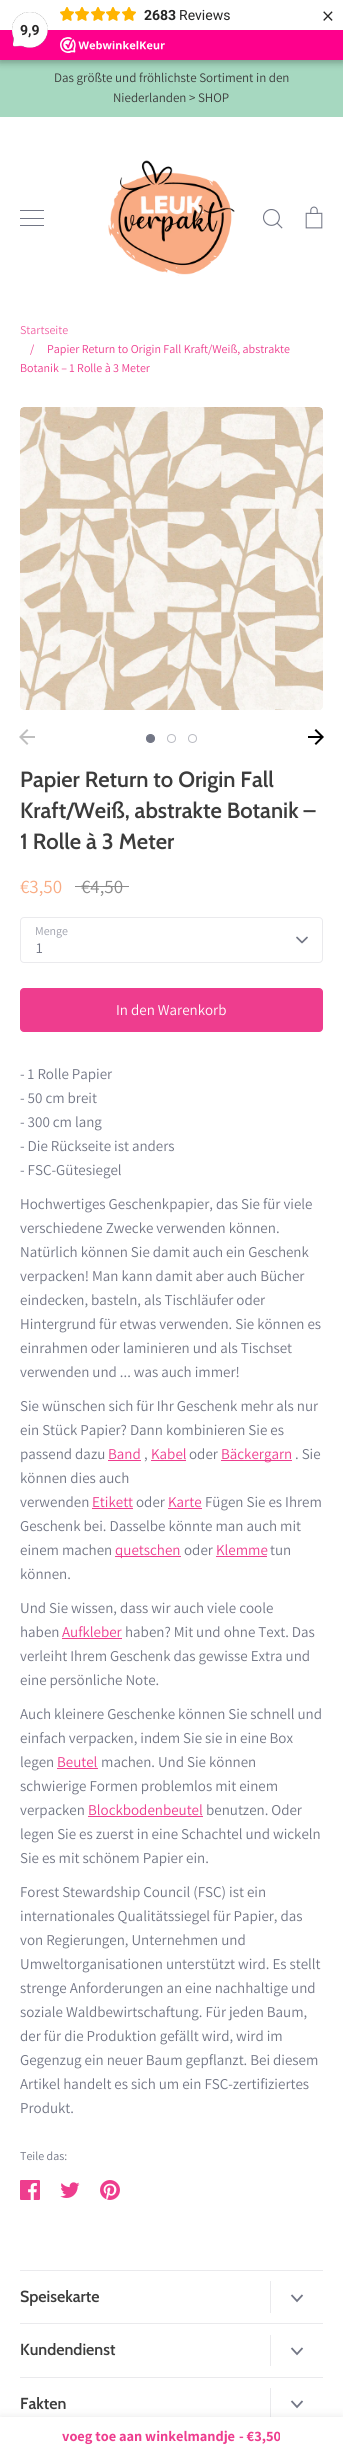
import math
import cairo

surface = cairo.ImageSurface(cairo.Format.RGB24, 343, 2456)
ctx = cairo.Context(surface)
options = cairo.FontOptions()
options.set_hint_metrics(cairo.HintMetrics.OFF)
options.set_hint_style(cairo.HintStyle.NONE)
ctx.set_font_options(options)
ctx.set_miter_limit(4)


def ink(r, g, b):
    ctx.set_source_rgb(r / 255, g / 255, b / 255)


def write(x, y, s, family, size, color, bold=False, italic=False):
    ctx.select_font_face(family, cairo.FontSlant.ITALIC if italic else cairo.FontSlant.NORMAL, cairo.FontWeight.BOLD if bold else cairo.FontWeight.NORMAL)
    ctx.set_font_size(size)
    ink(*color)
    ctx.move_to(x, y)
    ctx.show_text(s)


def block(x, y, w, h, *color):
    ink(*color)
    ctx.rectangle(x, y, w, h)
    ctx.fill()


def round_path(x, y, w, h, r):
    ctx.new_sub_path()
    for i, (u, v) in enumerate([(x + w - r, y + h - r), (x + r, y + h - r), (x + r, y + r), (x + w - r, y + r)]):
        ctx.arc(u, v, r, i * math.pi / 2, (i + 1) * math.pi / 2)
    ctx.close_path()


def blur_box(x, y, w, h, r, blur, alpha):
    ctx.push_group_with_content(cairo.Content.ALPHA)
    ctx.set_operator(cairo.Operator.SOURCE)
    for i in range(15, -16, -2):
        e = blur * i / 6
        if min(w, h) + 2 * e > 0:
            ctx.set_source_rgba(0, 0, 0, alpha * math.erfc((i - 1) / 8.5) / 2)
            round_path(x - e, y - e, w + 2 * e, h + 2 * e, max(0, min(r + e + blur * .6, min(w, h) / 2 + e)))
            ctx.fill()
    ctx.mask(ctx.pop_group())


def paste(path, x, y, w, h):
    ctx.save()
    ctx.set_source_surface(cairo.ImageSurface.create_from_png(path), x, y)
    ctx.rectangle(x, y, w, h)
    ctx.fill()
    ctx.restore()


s1 = dict(family="Roboto", size=14, color=(39, 38, 38), bold=True)
s2 = dict(family="Roboto", size=14, color=(39, 38, 38))
s3 = dict(family="Assistant", size=24, color=(39, 38, 38))
s4 = dict(family="Assistant", size=13, color=(60, 60, 60))
s5 = dict(family="Assistant", size=12, color=(241, 100, 165))
s6 = dict(family="Assistant", size=12, color=(238, 61, 142))
s7 = dict(family="Cabin SemiBold", size=22, color=(60, 60, 60))
s8 = dict(family="Assistant", size=19, color=(249, 171, 131))
s9 = dict(family="Assistant", size=19, color=(138, 138, 138))
s10 = dict(family="Assistant", size=12, color=(156, 159, 170))
s11 = dict(family="Assistant", size=15, color=(114, 118, 133))
s12 = dict(family="Assistant", size=15, color=(255, 255, 255))
s13 = dict(family="Assistant", size=15, color=(238, 61, 142))
s14 = dict(family="Assistant", size=12, color=(114, 118, 133))
s15 = dict(family="Cabin SemiBold", size=16, color=(60, 60, 60))
s16 = dict(family="Assistant", size=14.4, color=(238, 61, 142), bold=True)

ink(166, 216, 192)
ctx.paint()
ink(0, 0, 0)
blur_box(-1, -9, 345, 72, 0, 3, 0.15)
blur_box(0, 2, 343, 60, 0, 5, 0.15)
block(0, 0, 343, 30, 255, 255, 255)
paste("pic1.png", 60, 7, 14, 14)
paste("pic1.png", 75, 7, 14, 14)
paste("pic1.png", 91, 7, 14, 14)
paste("pic1.png", 106, 7, 14, 14)
paste("pic1.png", 122, 7, 14, 14)
write(144, 20, "2683", **s1)
write(179, 20, "Reviews", **s2)
write(322, 24, "×", **s3)
block(0, 30, 343, 30, 254, 0, 140)
paste("pic2.png", 12, 12, 36, 36)
write(20, 35, "9,9", **s1)
paste("pic3.png", 60, 37, 105, 16)
write(54, 82, "Das größte und fröhlichste Sortiment in den", **s4)
write(113, 102, "Niederlanden > SHOP", **s4)
block(0, 117, 343, 2300, 255, 255, 255)
block(20, 210, 24, 1, 114, 118, 133)
block(20, 218, 24, 1, 114, 118, 133)
block(20, 225, 24, 1, 114, 118, 133)
paste("pic4.png", 108, 160, 127, 116)
paste("pic5.png", 263, 209, 20, 20)
paste("pic6.png", 305, 206, 18, 23)
write(20, 334, "Startseite", **s5)
write(30, 353, "/", **s6)
write(47, 353, "Papier Return to Origin Fall Kraft/Weiß, abstrakte", **s6)
write(20, 372, "Botanik – 1 Rolle à 3 Meter", **s6)
paste("pic7.png", 20, 407, 303, 303)
paste("pic8.png", 19, 729, 16, 16)
paste("pic9.png", 308, 729, 16, 16)
ink(114, 118, 133)
ctx.arc(150.5, 738.5, 4, 0, 2 * math.pi)
ctx.fill_preserve()
ctx.set_line_width(1)
ctx.stroke()
ctx.arc(171.5, 738.5, 4, 0, 2 * math.pi)
ink(185, 187, 194)
ctx.stroke()
ctx.arc(192.5, 738.5, 4, 0, 2 * math.pi)
ctx.stroke()
write(20, 787, "Papier Return to Origin Fall", **s7)
write(20, 818, "Kraft/Weiß, abstrakte Botanik –", **s7)
write(20, 849, "1 Rolle à 3 Meter", **s7)
write(20, 893, "€3,50", **s8)
write(81, 893, "€4,50", **s9)
block(75, 886, 54, 1, 138, 138, 138)
write(35, 935, "Menge", **s10)
round_path(20.5, 917.5, 302, 45, 3.5)
ink(234, 234, 237)
ctx.stroke()
ctx.new_path()
ctx.move_to(297, 937.5)
ctx.line_to(302, 942.5)
ctx.line_to(307, 937.5)
ink(114, 118, 133)
ctx.set_line_width(1.7)
ctx.set_line_cap(cairo.LineCap.ROUND)
ctx.set_line_join(cairo.LineJoin.ROUND)
ctx.stroke()
write(36, 953, "1", **s11)
ink(238, 61, 142)
round_path(20.5, 988.5, 302, 43, 3.5)
ctx.fill_preserve()
ctx.set_line_width(1)
ctx.set_line_cap(cairo.LineCap.BUTT)
ctx.set_line_join(cairo.LineJoin.MITER)
ctx.stroke()
write(116, 1015, "In den Warenkorb", **s12)
write(20, 1079, "- 1 Rolle Papier", **s11)
write(20, 1103, "- 50 cm breit", **s11)
write(20, 1127, "- 300 cm lang", **s11)
write(20, 1151, "- Die Rückseite ist anders", **s11)
write(20, 1175, "- FSC-Gütesiegel", **s11)
write(20, 1209, "Hochwertiges Geschenkpapier, das Sie für viele", **s11)
write(20, 1233, "verschiedene Zwecke verwenden können.", **s11)
write(20, 1257, "Natürlich können Sie damit auch ein Geschenk", **s11)
write(20, 1281, "verpacken! Man kann damit aber auch Bücher", **s11)
write(20, 1305, "eindecken, basteln, als Tischläufer oder", **s11)
write(20, 1329, "Hintergrund für etwas verwenden. Sie können es", **s11)
write(20, 1353, "einrahmen oder laminieren und als Tischset", **s11)
write(20, 1377, "verwenden und ... was auch immer!", **s11)
write(20, 1411, "Sie wünschen sich für Ihr Geschenk mehr als nur", **s11)
write(20, 1435, "ein Stück Papier? Dann kombinieren Sie es", **s11)
write(20, 1459, "passend dazu", **s11)
write(108, 1459, "Band", **s13)
block(108, 1460, 33, 1, 238, 61, 142)
write(144, 1459, ",", **s11)
write(151, 1459, "Kabel", **s13)
block(151, 1460, 35, 1, 238, 61, 142)
write(189, 1459, "oder", **s11)
block(221, 1460, 71, 1, 238, 61, 142)
write(221, 1459, "Bäckergarn", **s13)
write(295, 1459, ". Sie", **s11)
write(20, 1483, "können dies auch", **s11)
write(20, 1507, "verwenden", **s11)
write(92, 1507, "Etikett", **s13)
block(92, 1508, 41, 1, 238, 61, 142)
write(136, 1507, "oder", **s11)
write(168, 1507, "Karte", **s13)
block(168, 1508, 34, 1, 238, 61, 142)
write(205, 1507, "Fügen Sie es Ihrem", **s11)
write(20, 1531, "Geschenk bei. Dasselbe könnte man auch mit", **s11)
write(20, 1555, "einem machen", **s11)
block(115, 1556, 66, 1, 238, 61, 142)
write(115, 1555, "quetschen", **s13)
write(184, 1555, "oder", **s11)
write(216, 1555, "Klemme", **s13)
block(216, 1556, 51, 1, 238, 61, 142)
write(270, 1555, "tun", **s11)
write(20, 1579, "können.", **s11)
write(20, 1613, "Und Sie wissen, dass wir auch viele coole", **s11)
write(20, 1637, "haben", **s11)
write(62, 1637, "Aufkleber", **s13)
block(62, 1638, 60, 1, 238, 61, 142)
write(125, 1637, "haben? Mit und ohne Text. Das", **s11)
write(20, 1661, "verleiht Ihrem Geschenk das gewisse Extra und", **s11)
write(20, 1685, "eine persönliche Note.", **s11)
write(20, 1719, "Auch kleinere Geschenke können Sie schnell und", **s11)
write(20, 1743, "einfach verpacken, indem Sie sie in eine Box", **s11)
write(20, 1767, "legen", **s11)
write(57, 1767, "Beutel", **s13)
block(57, 1768, 41, 1, 238, 61, 142)
write(101, 1767, "machen. Und Sie können", **s11)
write(20, 1791, "schwierige Formen problemlos mit einem", **s11)
write(20, 1815, "verpacken", **s11)
write(88, 1815, "Blockbodenbeutel", **s13)
block(88, 1816, 115, 1, 238, 61, 142)
write(206, 1815, "benutzen. Oder", **s11)
write(20, 1839, "legen Sie es zuerst in eine Schachtel und wickeln", **s11)
write(20, 1863, "Sie es mit schönem Papier ein.", **s11)
write(20, 1897, "Forest Stewardship Council (FSC) ist ein", **s11)
write(20, 1921, "internationales Qualitätssiegel für Papier, das", **s11)
write(20, 1945, "von Regierungen, Unternehmen und", **s11)
write(20, 1969, "Umweltorganisationen unterstützt wird. Es stellt", **s11)
write(20, 1993, "strenge Anforderungen an eine nachhaltige und", **s11)
write(20, 2017, "soziale Waldbewirtschaftung. Für jeden Baum,", **s11)
write(20, 2041, "der für die Produktion gefällt wird, wird im", **s11)
write(20, 2065, "Gegenzug ein neuer Baum gepflanzt. Bei diesem", **s11)
write(20, 2089, "Artikel handelt es sich um ein FSC-zertifiziertes", **s11)
write(20, 2113, "Produkt.", **s11)
write(20, 2160, "Teile das:", **s14)
paste("pic10.png", 20, 2180, 20, 20)
paste("pic11.png", 60, 2182, 20, 16)
paste("pic12.png", 100, 2180, 20, 20)
block(20, 2270, 303, 1, 234, 234, 237)
block(20, 2323, 303, 1, 234, 234, 237)
write(20, 2302, "Speisekarte", **s15)
block(270, 2281, 1, 32, 234, 234, 237)
ctx.new_path()
ctx.move_to(291.5, 2295)
ctx.line_to(297, 2301)
ctx.line_to(302.5, 2295)
ctx.move_to(291.5, 2348)
ctx.line_to(297, 2354)
ctx.line_to(302.5, 2348)
ink(114, 118, 133)
ctx.set_line_width(1.8)
ctx.stroke()
block(20, 2377, 303, 1, 234, 234, 237)
write(20, 2355, "Kundendienst", **s15)
block(270, 2335, 1, 31, 234, 234, 237)
write(20, 2409, "Fakten", **s15)
block(270, 2388, 1, 31, 234, 234, 237)
ctx.new_path()
ctx.move_to(291.5, 2401)
ctx.line_to(297, 2407)
ctx.line_to(302.5, 2401)
ink(114, 118, 133)
ctx.stroke()
ink(0, 0, 0)
blur_box(0, 2417, 343, 39, 0, 5, 0.09)
block(0, 2417, 343, 39, 255, 255, 255)
write(62, 2441, "voeg toe aan winkelmandje", **s16)
write(239, 2441, "- €3,50", **s16)
surface.write_to_png("screenshot.png")
